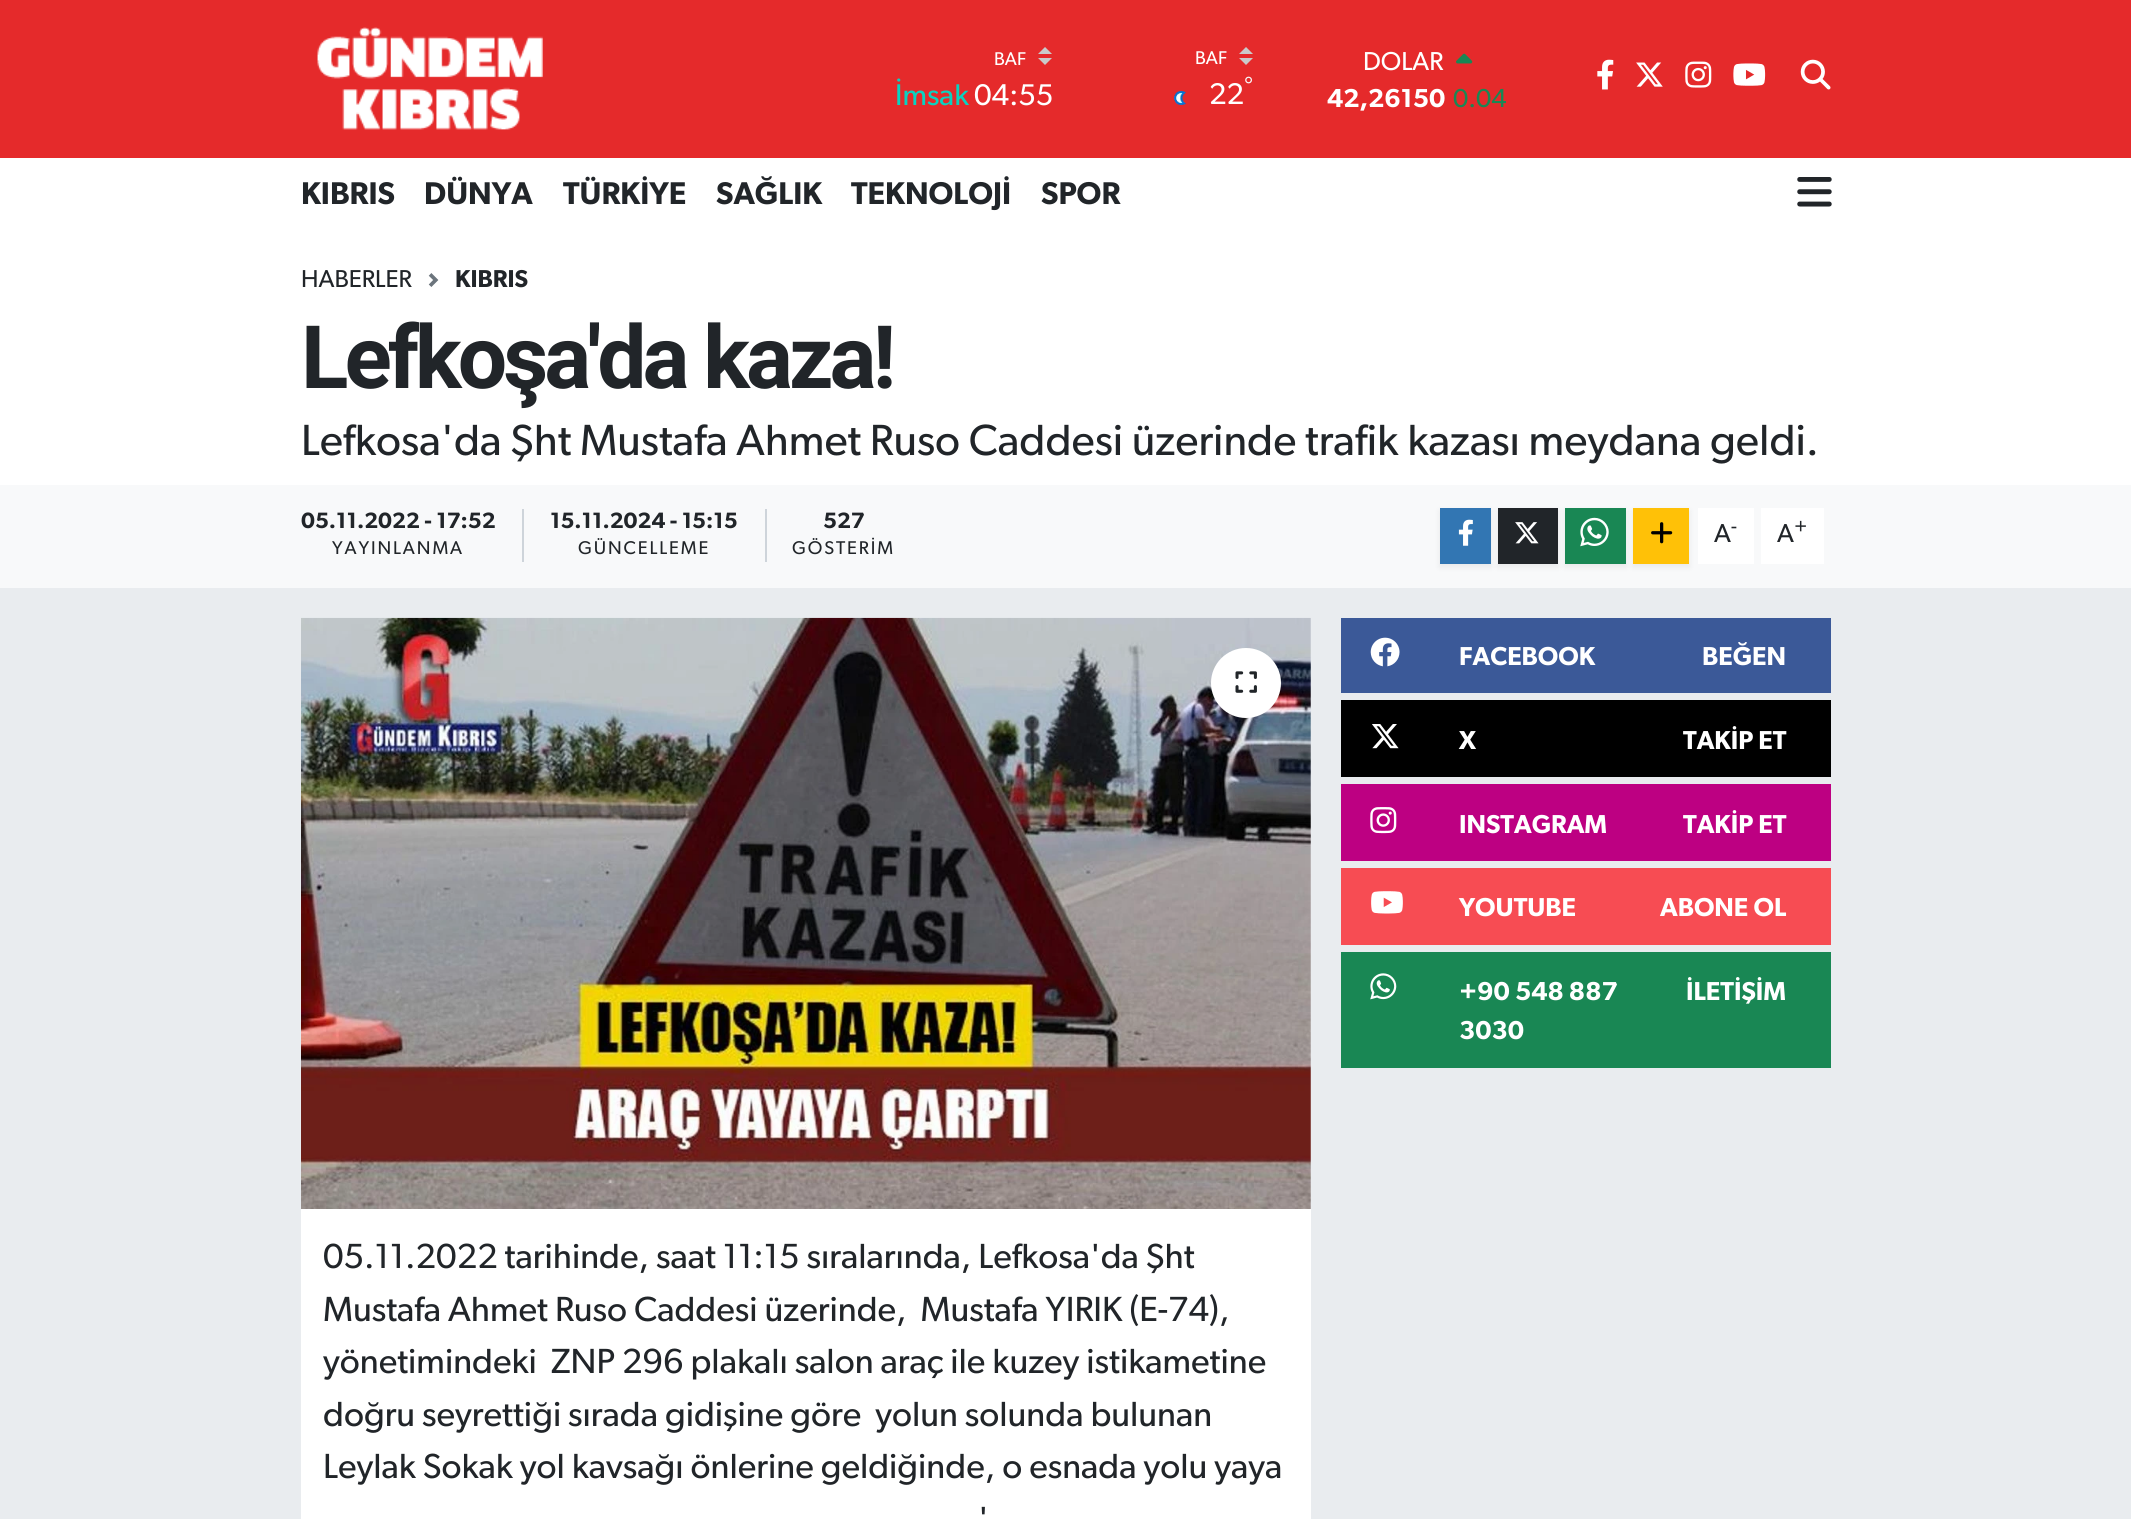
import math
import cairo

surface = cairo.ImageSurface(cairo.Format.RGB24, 2131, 1519)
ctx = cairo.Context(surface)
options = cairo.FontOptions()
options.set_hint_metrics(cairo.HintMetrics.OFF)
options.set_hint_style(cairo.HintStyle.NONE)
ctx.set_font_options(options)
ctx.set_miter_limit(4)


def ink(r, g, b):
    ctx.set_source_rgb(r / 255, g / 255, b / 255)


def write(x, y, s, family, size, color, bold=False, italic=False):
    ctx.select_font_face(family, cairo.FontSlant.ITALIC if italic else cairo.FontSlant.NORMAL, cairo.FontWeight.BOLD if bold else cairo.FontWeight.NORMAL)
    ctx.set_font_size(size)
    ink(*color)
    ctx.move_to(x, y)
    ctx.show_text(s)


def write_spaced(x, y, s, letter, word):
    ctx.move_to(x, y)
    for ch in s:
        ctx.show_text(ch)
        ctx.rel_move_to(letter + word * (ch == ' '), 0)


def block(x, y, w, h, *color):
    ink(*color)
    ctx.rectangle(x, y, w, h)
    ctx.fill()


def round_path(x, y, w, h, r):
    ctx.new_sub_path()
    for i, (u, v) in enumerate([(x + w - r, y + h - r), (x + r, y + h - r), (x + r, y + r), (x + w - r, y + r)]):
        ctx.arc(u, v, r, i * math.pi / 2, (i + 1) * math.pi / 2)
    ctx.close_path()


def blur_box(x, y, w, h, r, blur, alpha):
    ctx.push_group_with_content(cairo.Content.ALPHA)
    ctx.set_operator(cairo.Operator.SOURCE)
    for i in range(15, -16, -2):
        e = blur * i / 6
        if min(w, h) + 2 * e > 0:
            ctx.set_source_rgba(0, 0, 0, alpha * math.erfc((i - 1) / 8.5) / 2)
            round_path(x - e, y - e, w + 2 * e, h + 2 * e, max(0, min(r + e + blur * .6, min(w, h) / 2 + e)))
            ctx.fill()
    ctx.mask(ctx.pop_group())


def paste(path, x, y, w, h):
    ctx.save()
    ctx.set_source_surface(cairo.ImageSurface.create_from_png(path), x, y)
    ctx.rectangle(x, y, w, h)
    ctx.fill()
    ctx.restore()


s1 = dict(family="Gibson", size=18.5, color=(255, 255, 255))
s2 = dict(family="Gibson", size=30, color=(9, 210, 193))
s3 = dict(family="Gibson", size=30, color=(255, 255, 255))
s4 = dict(family="Gibson", size=22.25, color=(248, 249, 250))
s5 = dict(family="Gibson", size=26, color=(255, 255, 255))
s6 = dict(family="Gibson SemiBold", size=26, color=(255, 255, 255))
s7 = dict(family="Gibson", size=26, color=(25, 135, 84))
s8 = dict(family="Gibson SemiBold", size=31.5, color=(33, 37, 41))
s9 = dict(family="Gibson", size=24.5, color=(33, 37, 41))
s10 = dict(family="Gibson SemiBold", size=24.5, color=(33, 37, 41))
s11 = dict(family="Gibson", size=43.75, color=(33, 37, 41))
s12 = dict(family="Gibson SemiBold", size=22.25, color=(33, 37, 41))
s13 = dict(family="Gibson", size=26, color=(33, 37, 41))
s14 = dict(family="Gibson", size=20, color=(33, 37, 41))
s15 = dict(family="Gibson", size=35, color=(33, 37, 41))

ink(233, 236, 239)
ctx.paint()
block(0, 0, 2131, 158, 229, 42, 43)
paste("pic1.png", 317, 27, 226, 103)
ink(202, 202, 202)
ctx.set_fill_rule(cairo.FillRule.EVEN_ODD)
ctx.new_path()
ctx.move_to(1045, 47)
ctx.line_to(1038, 54)
ctx.line_to(1052, 54)
ctx.close_path()
ctx.move_to(1045, 65)
ctx.line_to(1052, 58)
ctx.line_to(1038, 58)
ctx.close_path()
ctx.fill()
write(994, 65, "BAF", **s1)
write(895, 105, "İmsak", **s2)
write(974, 105, "04:55", **s3)
ink(202, 202, 202)
ctx.new_path()
ctx.move_to(1246, 47)
ctx.line_to(1239, 54)
ctx.line_to(1253, 54)
ctx.close_path()
ctx.move_to(1246, 65)
ctx.line_to(1253, 58)
ctx.line_to(1239, 58)
ctx.close_path()
ctx.fill()
write(1195, 64, "BAF", **s1)
write(1244, 93, "°", **s4)
paste("pic2.png", 1174, 91, 12, 14)
write(1209, 104, "22", **s3)
write(1363, 70, "DOLAR", **s5)
paste("pic3.png", 1456, 53, 17, 11)
write(1327, 107, "42,26150", **s6)
write(1453, 107, "0.04", **s7)
paste("pic4.png", 1597, 59, 17, 31)
paste("pic5.png", 1636, 62, 27, 25)
paste("pic6.png", 1685, 61, 27, 27)
paste("pic7.png", 1733, 63, 33, 23)
paste("pic8.png", 1800, 59, 31, 31)
block(0, 158, 2131, 327, 255, 255, 255)
write(301, 204, "KIBRIS", **s8)
write(424, 204, "DÜNYA", **s8)
write(563, 204, "TÜRKİYE", **s8)
write(716, 204, "SAĞLIK", **s8)
write(851, 204, "TEKNOLOJİ", **s8)
write(1041, 204, "SPOR", **s8)
paste("pic9.png", 1797, 177, 35, 30)
write(301, 287, "HABERLER", **s9)
paste("pic10.png", 428, 273, 11, 14)
write(455, 287, "KIBRIS", **s10)
ctx.select_font_face("Roboto", cairo.FontSlant.NORMAL, cairo.FontWeight.BOLD)
ctx.set_font_size(87.5)
write_spaced(301, 388, "Lefkoşa'da kaza!", -4, 0)
write(301, 455, "Lefkosa'da Şht Mustafa Ahmet Ruso Caddesi üzerinde trafik kazası meydana geldi.", **s11)
block(0, 485, 2131, 103, 248, 249, 250)
block(522, 509, 2, 53, 206, 212, 218)
write(301, 528, "05.11.2022 - 17:52", **s12)
ctx.select_font_face("Gibson")
ctx.set_font_size(18.5)
write_spaced(332, 554, "YAYINLANMA", 1.9, 0)
block(765, 509, 2, 53, 206, 212, 218)
write(550, 528, "15.11.2024 - 15:15", **s12)
ctx.select_font_face("Gibson")
ctx.set_font_size(18.5)
write_spaced(578, 554, "GÜNCELLEME", 1.9, 0)
write(823, 528, "527", **s12)
ctx.select_font_face("Gibson")
ctx.set_font_size(18.5)
write_spaced(792, 554, "GÖSTERİM", 1.9, 0)
ink(0, 0, 0)
blur_box(1440, 511, 51, 56, 0, 3.5, 0.07)
block(1440, 508, 51, 56, 50, 118, 179)
paste("pic11.png", 1458, 519, 15, 27)
ink(0, 0, 0)
blur_box(1498, 511, 60, 56, 0, 3.5, 0.07)
block(1498, 508, 60, 56, 33, 37, 41)
paste("pic12.png", 1515, 522, 24, 22)
ink(0, 0, 0)
blur_box(1565, 511, 61, 56, 0, 3.5, 0.07)
block(1565, 508, 61, 56, 25, 135, 84)
paste("pic13.png", 1580, 517, 29, 30)
block(1698, 508, 56, 56, 255, 255, 255)
ink(0, 0, 0)
blur_box(1633, 511, 56, 56, 0, 3.5, 0.07)
block(1633, 508, 56, 56, 255, 193, 7)
paste("pic14.png", 1651, 522, 22, 22)
write(1714, 542, "A", **s13)
write(1731, 533, "-", **s14)
block(1761, 508, 63, 56, 255, 255, 255)
write(1777, 542, "A", **s13)
write(1794, 533, "+", **s14)
block(1341, 618, 490, 75, 59, 89, 152)
paste("pic15.png", 1370, 637, 30, 30)
write(1459, 665, "FACEBOOK", **s6)
write(1702, 665, "BEĞEN", **s6)
block(1341, 700, 490, 77, 0, 0, 0)
paste("pic16.png", 1372, 724, 27, 25)
write(1459, 749, "X", **s6)
write(1683, 749, "TAKİP ET", **s6)
block(1341, 784, 490, 77, 189, 0, 130)
paste("pic17.png", 1370, 807, 27, 27)
write(1459, 833, "INSTAGRAM", **s6)
write(1683, 833, "TAKİP ET", **s6)
block(1341, 868, 490, 77, 247, 76, 83)
paste("pic18.png", 1371, 891, 32, 23)
write(1459, 916, "YOUTUBE", **s6)
write(1660, 916, "ABONE OL", **s6)
block(1341, 952, 490, 116, 25, 135, 84)
paste("pic19.png", 1370, 973, 27, 27)
write(1459, 1000, "+90 548 887", **s6)
write(1459, 1039, "3030", **s6)
write(1686, 1000, "İLETİŞİM", **s6)
paste("pic20.png", 301, 617, 1010, 592)
ctx.arc(1246, 683, 35, 0, 2 * math.pi)
ctx.fill()
paste("pic21.png", 1235, 671, 22, 22)
block(301, 1209, 1010, 310, 255, 255, 255)
write(323, 1268, "05.11.2022 tarihinde, saat 11:15 sıralarında, Lefkosa'da Şht", **s15)
write(323, 1321, "Mustafa Ahmet Ruso Caddesi üzerinde,  Mustafa YIRIK (E-74),", **s15)
write(323, 1373, "yönetimindeki  ZNP 296 plakalı salon araç ile kuzey istikametine", **s15)
write(323, 1426, "doğru seyrettiği sırada gidişine göre  yolun solunda bulunan", **s15)
write(323, 1478, "Leylak Sokak yol kavsağı önlerine geldiğinde, o esnada yolu yaya", **s15)
write(978, 1531, "'", **s15)
surface.write_to_png("screenshot.png")
